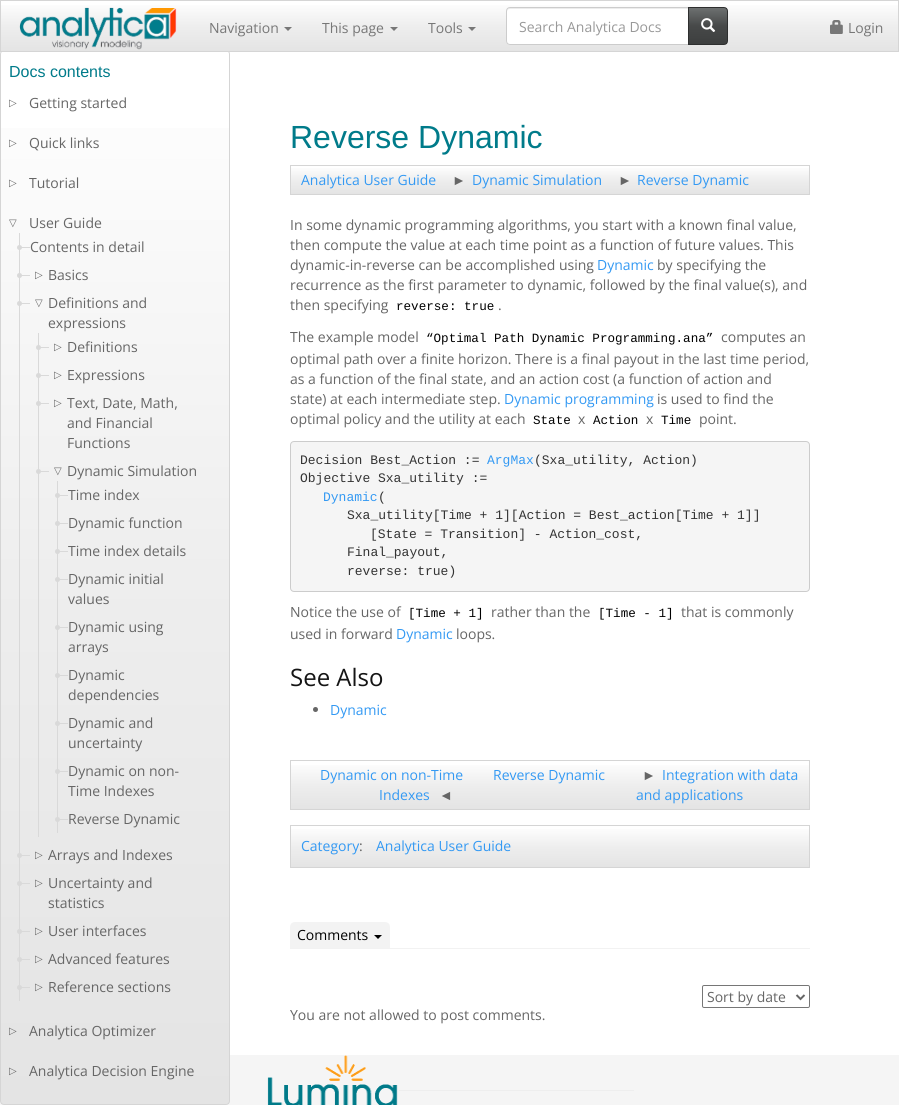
import math
import cairo

surface = cairo.ImageSurface(cairo.Format.RGB24, 899, 1105)
ctx = cairo.Context(surface)
options = cairo.FontOptions()
options.set_hint_metrics(cairo.HintMetrics.OFF)
options.set_hint_style(cairo.HintStyle.NONE)
ctx.set_font_options(options)
ctx.set_miter_limit(4)


def ink(r, g, b):
    ctx.set_source_rgb(r / 255, g / 255, b / 255)


def write(x, y, s, family, size, color, bold=False, italic=False):
    ctx.select_font_face(family, cairo.FontSlant.ITALIC if italic else cairo.FontSlant.NORMAL, cairo.FontWeight.BOLD if bold else cairo.FontWeight.NORMAL)
    ctx.set_font_size(size)
    ink(*color)
    ctx.move_to(x, y)
    ctx.show_text(s)


def block(x, y, w, h, *color):
    ink(*color)
    ctx.rectangle(x, y, w, h)
    ctx.fill()


def round_path(x, y, w, h, r):
    ctx.new_sub_path()
    for i, (u, v) in enumerate([(x + w - r, y + h - r), (x + r, y + h - r), (x + r, y + r), (x + w - r, y + r)]):
        ctx.arc(u, v, r, i * math.pi / 2, (i + 1) * math.pi / 2)
    ctx.close_path()


def paste(path, x, y, w, h):
    ctx.save()
    ctx.set_source_surface(cairo.ImageSurface.create_from_png(path), x, y)
    ctx.rectangle(x, y, w, h)
    ctx.fill()
    ctx.restore()


s1 = dict(family="Open Sans", size=14, color=(119, 119, 119))
s2 = dict(family="Open Sans", size=14, color=(153, 153, 153))
s3 = dict(family="Liberation Sans", size=16, color=(0, 123, 138))
s4 = dict(family="DejaVu Sans", size=10, color=(102, 102, 102))
s5 = dict(family="Open Sans", size=14, color=(102, 102, 102))
s6 = dict(family="Liberation Sans", size=32, color=(0, 123, 138))
s7 = dict(family="Open Sans", size=14, color=(51, 153, 243))
s8 = dict(family="Liberation Sans", size=14, color=(102, 102, 102))
s9 = dict(family="Liberation Mono", size=12.6, color=(0, 0, 0))
s10 = dict(family="Liberation Mono", size=13, color=(51, 51, 51))
s11 = dict(family="Liberation Mono", size=13, color=(51, 153, 243))
s12 = dict(family="Open Sans", size=24, color=(21, 21, 21))
s13 = dict(family="Open Sans", size=14, color=(0, 0, 0))

ink(255, 255, 255)
ctx.paint()
block(0, 1055, 899, 50, 245, 245, 245)
gradient = cairo.LinearGradient(115, 51, 115, 1104)
gradient.add_color_stop_rgba(0, 1, 1, 1, 1)
gradient.add_color_stop_rgba(0.5, 0.933, 0.933, 0.933, 1)
gradient.add_color_stop_rgba(1, 0.894, 0.894, 0.894, 1)
ctx.set_source(gradient)
ctx.rectangle(1, 128, 228, 976)
ctx.fill()
round_path(0.5, 50.5, 229, 1054, 3.5)
ink(213, 213, 213)
ctx.set_line_width(1)
ctx.stroke()
gradient = cairo.LinearGradient(450, 1, 450, 51)
gradient.add_color_stop_rgba(0, 1, 1, 1, 1)
gradient.add_color_stop_rgba(0.5, 0.933, 0.933, 0.933, 1)
gradient.add_color_stop_rgba(1, 0.894, 0.894, 0.894, 1)
ctx.set_source(gradient)
ctx.rectangle(1, 5, 897, 46)
ctx.fill()
ctx.rectangle(0.5, 0.5, 898, 51)
ink(213, 213, 213)
ctx.stroke()
paste("pic1.png", 19, 7, 158, 43)
write(209, 33, "Navigation", **s1)
ctx.new_path()
ctx.move_to(284, 27)
ctx.line_to(292, 27)
ctx.line_to(288, 31)
ctx.close_path()
ctx.fill()
write(322, 33, "This page", **s1)
ctx.new_path()
ctx.move_to(390, 27)
ctx.line_to(398, 27)
ctx.line_to(394, 31)
ctx.close_path()
ctx.fill()
write(428, 33, "Tools", **s1)
ctx.new_path()
ctx.move_to(468, 27)
ctx.line_to(476, 27)
ctx.line_to(472, 31)
ctx.close_path()
ctx.fill()
ink(255, 255, 255)
ctx.new_path()
ctx.move_to(510, 7)
ctx.line_to(689, 7)
ctx.line_to(689, 45)
ctx.line_to(510, 45)
ctx.curve_to(508, 45, 506, 43, 506, 41)
ctx.line_to(506, 11)
ctx.curve_to(506, 9, 508, 7, 510, 7)
ctx.close_path()
ctx.fill()
ink(236, 236, 236)
ctx.new_path()
ctx.move_to(510, 9)
ctx.line_to(688, 9)
ctx.line_to(688, 8)
ctx.line_to(509, 8)
ctx.curve_to(507, 9, 507, 10, 507, 12)
ctx.curve_to(507, 10, 508, 9, 510, 9)
ctx.close_path()
ctx.fill()
ctx.new_path()
ctx.move_to(510, 7.5)
ctx.line_to(688.5, 7.5)
ctx.line_to(688.5, 44.5)
ctx.line_to(510, 44.5)
ctx.curve_to(508, 44.5, 506.5, 43, 506.5, 41)
ctx.line_to(506.5, 11)
ctx.curve_to(506.5, 9, 508, 7.5, 510, 7.5)
ctx.close_path()
ink(204, 204, 204)
ctx.stroke()
write(519, 32, "Search Analytica Docs", **s2)
gradient = cairo.LinearGradient(708, 8, 708, 44)
gradient.add_color_stop_rgba(0, 0.427, 0.439, 0.439, 1)
gradient.add_color_stop_rgba(0.5, 0.278, 0.286, 0.286, 1)
gradient.add_color_stop_rgba(1, 0.239, 0.247, 0.247, 1)
ctx.set_source(gradient)
ctx.rectangle(689, 8, 38, 36)
ctx.fill()
ctx.new_path()
ctx.move_to(688.5, 7.5)
ctx.line_to(724, 7.5)
ctx.curve_to(726, 7.5, 727.5, 9, 727.5, 11)
ctx.line_to(727.5, 41)
ctx.curve_to(727.5, 43, 726, 44.5, 724, 44.5)
ctx.line_to(688.5, 44.5)
ctx.close_path()
ink(46, 47, 47)
ctx.stroke()
paste("pic2.png", 701, 18, 15, 14)
paste("pic3.png", 830, 20, 13, 14)
write(848, 33, "Login", **s1)
write(9, 77, "Docs contents", **s3)
write(9, 106, "▷", **s4)
write(29, 108, "Getting started", **s5)
write(9, 146, "▷", **s4)
write(29, 148, "Quick links", **s5)
write(9, 186, "▷", **s4)
write(29, 188, "Tutorial", **s5)
write(9, 226, "▽", **s4)
write(29, 228, "User Guide", **s5)
block(19, 233, 1, 768, 217, 217, 217)
block(20, 247, 10, 1, 217, 217, 217)
ctx.new_path()
ctx.arc(19.5, 247.5, 2.5, 0, 2 * math.pi)
ctx.fill()
write(30, 252, "Contents in detail", **s5)
block(20, 275, 10, 1, 217, 217, 217)
ctx.new_path()
ctx.arc(19.5, 275.5, 2.5, 0, 2 * math.pi)
ctx.fill()
write(35, 278, "▷", **s4)
write(48, 280, "Basics", **s5)
block(20, 303, 10, 1, 217, 217, 217)
ctx.new_path()
ctx.arc(19.5, 303.5, 2.5, 0, 2 * math.pi)
ctx.fill()
write(35, 306, "▽", **s4)
write(48, 308, "Definitions and", **s5)
write(48, 328, "expressions", **s5)
block(38, 333, 1, 504, 217, 217, 217)
block(39, 347, 10, 1, 217, 217, 217)
ctx.new_path()
ctx.arc(38.5, 347.5, 2.5, 0, 2 * math.pi)
ctx.fill()
write(54, 350, "▷", **s4)
write(67, 352, "Definitions", **s5)
block(39, 375, 10, 1, 217, 217, 217)
ctx.new_path()
ctx.arc(38.5, 375.5, 2.5, 0, 2 * math.pi)
ctx.fill()
write(54, 378, "▷", **s4)
write(67, 380, "Expressions", **s5)
block(39, 403, 10, 1, 217, 217, 217)
ctx.new_path()
ctx.arc(38.5, 403.5, 2.5, 0, 2 * math.pi)
ctx.fill()
write(54, 406, "▷", **s4)
write(67, 408, "Text, Date, Math,", **s5)
write(67, 428, "and Financial", **s5)
write(67, 448, "Functions", **s5)
block(39, 471, 10, 1, 217, 217, 217)
ctx.new_path()
ctx.arc(38.5, 471.5, 2.5, 0, 2 * math.pi)
ctx.fill()
write(54, 474, "▽", **s4)
write(67, 476, "Dynamic Simulation", **s5)
block(57, 481, 1, 352, 217, 217, 217)
block(58, 495, 10, 1, 217, 217, 217)
ctx.new_path()
ctx.arc(57.5, 495.5, 2.5, 0, 2 * math.pi)
ctx.fill()
write(68, 500, "Time index", **s5)
block(58, 523, 10, 1, 217, 217, 217)
ctx.new_path()
ctx.arc(57.5, 523.5, 2.5, 0, 2 * math.pi)
ctx.fill()
write(68, 528, "Dynamic function", **s5)
block(58, 551, 10, 1, 217, 217, 217)
ctx.new_path()
ctx.arc(57.5, 551.5, 2.5, 0, 2 * math.pi)
ctx.fill()
write(68, 556, "Time index details", **s5)
block(58, 579, 10, 1, 217, 217, 217)
ctx.new_path()
ctx.arc(57.5, 579.5, 2.5, 0, 2 * math.pi)
ctx.fill()
write(68, 584, "Dynamic initial", **s5)
write(68, 604, "values", **s5)
block(58, 627, 10, 1, 217, 217, 217)
ctx.new_path()
ctx.arc(57.5, 627.5, 2.5, 0, 2 * math.pi)
ctx.fill()
write(68, 632, "Dynamic using", **s5)
write(68, 652, "arrays", **s5)
block(58, 675, 10, 1, 217, 217, 217)
ctx.new_path()
ctx.arc(57.5, 675.5, 2.5, 0, 2 * math.pi)
ctx.fill()
write(68, 680, "Dynamic", **s5)
write(68, 700, "dependencies", **s5)
block(58, 723, 10, 1, 217, 217, 217)
ctx.new_path()
ctx.arc(57.5, 723.5, 2.5, 0, 2 * math.pi)
ctx.fill()
write(68, 728, "Dynamic and", **s5)
write(68, 748, "uncertainty", **s5)
block(58, 771, 10, 1, 217, 217, 217)
ctx.new_path()
ctx.arc(57.5, 771.5, 2.5, 0, 2 * math.pi)
ctx.fill()
write(68, 776, "Dynamic on non-", **s5)
write(68, 796, "Time Indexes", **s5)
block(58, 819, 10, 1, 217, 217, 217)
ctx.new_path()
ctx.arc(57.5, 819.5, 2.5, 0, 2 * math.pi)
ctx.fill()
write(68, 824, "Reverse Dynamic", **s5)
block(20, 855, 10, 1, 217, 217, 217)
ctx.new_path()
ctx.arc(19.5, 855.5, 2.5, 0, 2 * math.pi)
ctx.fill()
write(35, 858, "▷", **s4)
write(48, 860, "Arrays and Indexes", **s5)
block(20, 883, 10, 1, 217, 217, 217)
ctx.new_path()
ctx.arc(19.5, 883.5, 2.5, 0, 2 * math.pi)
ctx.fill()
write(35, 886, "▷", **s4)
write(48, 888, "Uncertainty and", **s5)
write(48, 908, "statistics", **s5)
block(20, 931, 10, 1, 217, 217, 217)
ctx.new_path()
ctx.arc(19.5, 931.5, 2.5, 0, 2 * math.pi)
ctx.fill()
write(35, 934, "▷", **s4)
write(48, 936, "User interfaces", **s5)
block(20, 959, 10, 1, 217, 217, 217)
ctx.new_path()
ctx.arc(19.5, 959.5, 2.5, 0, 2 * math.pi)
ctx.fill()
write(35, 962, "▷", **s4)
write(48, 964, "Advanced features", **s5)
block(20, 987, 10, 1, 217, 217, 217)
ctx.new_path()
ctx.arc(19.5, 987.5, 2.5, 0, 2 * math.pi)
ctx.fill()
write(35, 990, "▷", **s4)
write(48, 992, "Reference sections", **s5)
write(9, 1034, "▷", **s4)
write(29, 1036, "Analytica Optimizer", **s5)
write(9, 1074, "▷", **s4)
write(29, 1076, "Analytica Decision Engine", **s5)
write(290, 148, "Reverse Dynamic", **s6)
gradient = cairo.LinearGradient(550, 166, 550, 194)
gradient.add_color_stop_rgba(0, 1, 1, 1, 1)
gradient.add_color_stop_rgba(0.5, 0.933, 0.933, 0.933, 1)
gradient.add_color_stop_rgba(1, 0.894, 0.894, 0.894, 1)
ctx.set_source(gradient)
ctx.rectangle(291, 168, 518, 26)
ctx.fill()
ctx.rectangle(290.5, 165.5, 519, 29)
ink(213, 213, 213)
ctx.stroke()
write(301, 185, "Analytica User Guide", **s7)
write(452, 185, "►", **s8)
write(472, 185, "Dynamic Simulation", **s7)
write(618, 185, "►", **s8)
write(637, 185, "Reverse Dynamic", **s7)
write(290, 230, "In some dynamic programming algorithms, you start with a known final value,", **s5)
write(290, 250, "then compute the value at each time point as a function of future values. This", **s5)
write(290, 270, "dynamic-in-reverse can be accomplished using", **s5)
write(597, 270, "Dynamic", **s7)
write(657, 270, "by specifying the", **s5)
write(290, 290, "recurrence as the first parameter to dynamic, followed by the final value(s), and", **s5)
write(290, 310, "then specifying", **s5)
write(396, 310, "reverse: true", **s9)
write(498, 310, ".", **s5)
write(290, 342, "The example model", **s5)
write(426, 342, "“Optimal Path Dynamic Programming.ana”", **s9)
write(721, 342, "computes an", **s5)
write(290, 364, "optimal path over a finite horizon. There is a final payout in the last time period,", **s5)
write(290, 384, "as a function of the final state, and an action cost (a function of action and", **s5)
write(290, 404, "state) at each intermediate step.", **s5)
write(504, 404, "Dynamic programming", **s7)
write(657, 404, "is used to find the", **s5)
write(290, 424, "optimal policy and the utility at each", **s5)
write(533, 424, "State", **s9)
write(578, 424, "x", **s5)
write(593, 424, "Action", **s9)
write(646, 424, "x", **s5)
write(661, 424, "Time", **s9)
write(699, 424, "point.", **s5)
ink(245, 245, 245)
round_path(290.5, 441.5, 519, 150, 3.5)
ctx.fill_preserve()
ink(204, 204, 204)
ctx.stroke()
write(300, 464, "Decision Best_Action :=", **s10)
write(487, 464, "ArgMax", **s11)
write(534, 464, "(Sxa_utility, Action)", **s10)
write(300, 482, "Objective Sxa_utility :=", **s10)
write(323, 501, "Dynamic", **s11)
write(378, 501, "(", **s10)
write(347, 519, "Sxa_utility[Time + 1][Action = Best_action[Time + 1]]", **s10)
write(370, 538, "[State = Transition] - Action_cost,", **s10)
write(347, 556, "Final_payout,", **s10)
write(347, 575, "reverse: true)", **s10)
write(290, 617, "Notice the use of", **s5)
write(408, 617, "[Time + 1]", **s9)
write(491, 617, "rather than the", **s5)
write(598, 617, "[Time - 1]", **s9)
write(681, 617, "that is commonly", **s5)
write(290, 639, "used in forward", **s5)
write(396, 639, "Dynamic", **s7)
write(456, 639, "loops.", **s5)
write(290, 686, "See Also", **s12)
ink(102, 102, 102)
ctx.new_path()
ctx.arc(315.5, 709.5, 2.5, 0, 2 * math.pi)
ctx.fill()
write(330, 715, "Dynamic", **s7)
gradient = cairo.LinearGradient(550, 761, 550, 809)
gradient.add_color_stop_rgba(0, 1, 1, 1, 1)
gradient.add_color_stop_rgba(0.5, 0.933, 0.933, 0.933, 1)
gradient.add_color_stop_rgba(1, 0.894, 0.894, 0.894, 1)
ctx.set_source(gradient)
ctx.rectangle(291, 765, 518, 44)
ctx.fill()
ctx.rectangle(290.5, 760.5, 519, 49)
ink(213, 213, 213)
ctx.stroke()
write(320, 780, "Dynamic on non-Time", **s7)
write(379, 800, "Indexes", **s7)
write(439, 800, "◄", **s8)
write(493, 780, "Reverse Dynamic", **s7)
write(642, 780, "►", **s8)
write(662, 780, "Integration with data", **s7)
write(636, 800, "and applications", **s7)
gradient = cairo.LinearGradient(550, 826, 550, 867)
gradient.add_color_stop_rgba(0, 1, 1, 1, 1)
gradient.add_color_stop_rgba(0.5, 0.933, 0.933, 0.933, 1)
gradient.add_color_stop_rgba(1, 0.894, 0.894, 0.894, 1)
ctx.set_source(gradient)
ctx.rectangle(291, 829, 518, 38)
ctx.fill()
ctx.rectangle(290.5, 825.5, 519, 42)
ink(213, 213, 213)
ctx.stroke()
write(301, 851, "Category", **s7)
write(359, 851, ":", **s5)
write(376, 851, "Analytica User Guide", **s7)
block(290, 948, 520, 1, 242, 242, 242)
ctx.set_source_rgba(0.502, 0.502, 0.502, 0.09)
ctx.new_path()
ctx.move_to(295, 922)
ctx.line_to(385, 922)
ctx.curve_to(388, 922, 390, 924, 390, 927)
ctx.line_to(390, 948)
ctx.line_to(290, 948)
ctx.line_to(290, 927)
ctx.curve_to(290, 924, 292, 922, 295, 922)
ctx.close_path()
ctx.fill()
write(297, 940, "Comments", **s13)
ctx.new_path()
ctx.move_to(374, 935)
ctx.line_to(382, 935)
ctx.line_to(378, 939)
ctx.close_path()
ctx.fill()
round_path(702.5, 985.5, 107, 22, 1.5)
ink(118, 118, 118)
ctx.stroke()
ctx.new_path()
ctx.move_to(796.5, 995)
ctx.line_to(800.5, 999)
ctx.line_to(804.5, 995)
ink(102, 102, 102)
ctx.set_line_width(2)
ctx.stroke()
write(707, 1002, "Sort by date", **s5)
write(290, 1020, "You are not allowed to post comments.", **s5)
paste("pic4.png", 267, 1055, 131, 50)
block(399, 1090, 235, 1, 238, 238, 238)
surface.write_to_png("screenshot.png")
